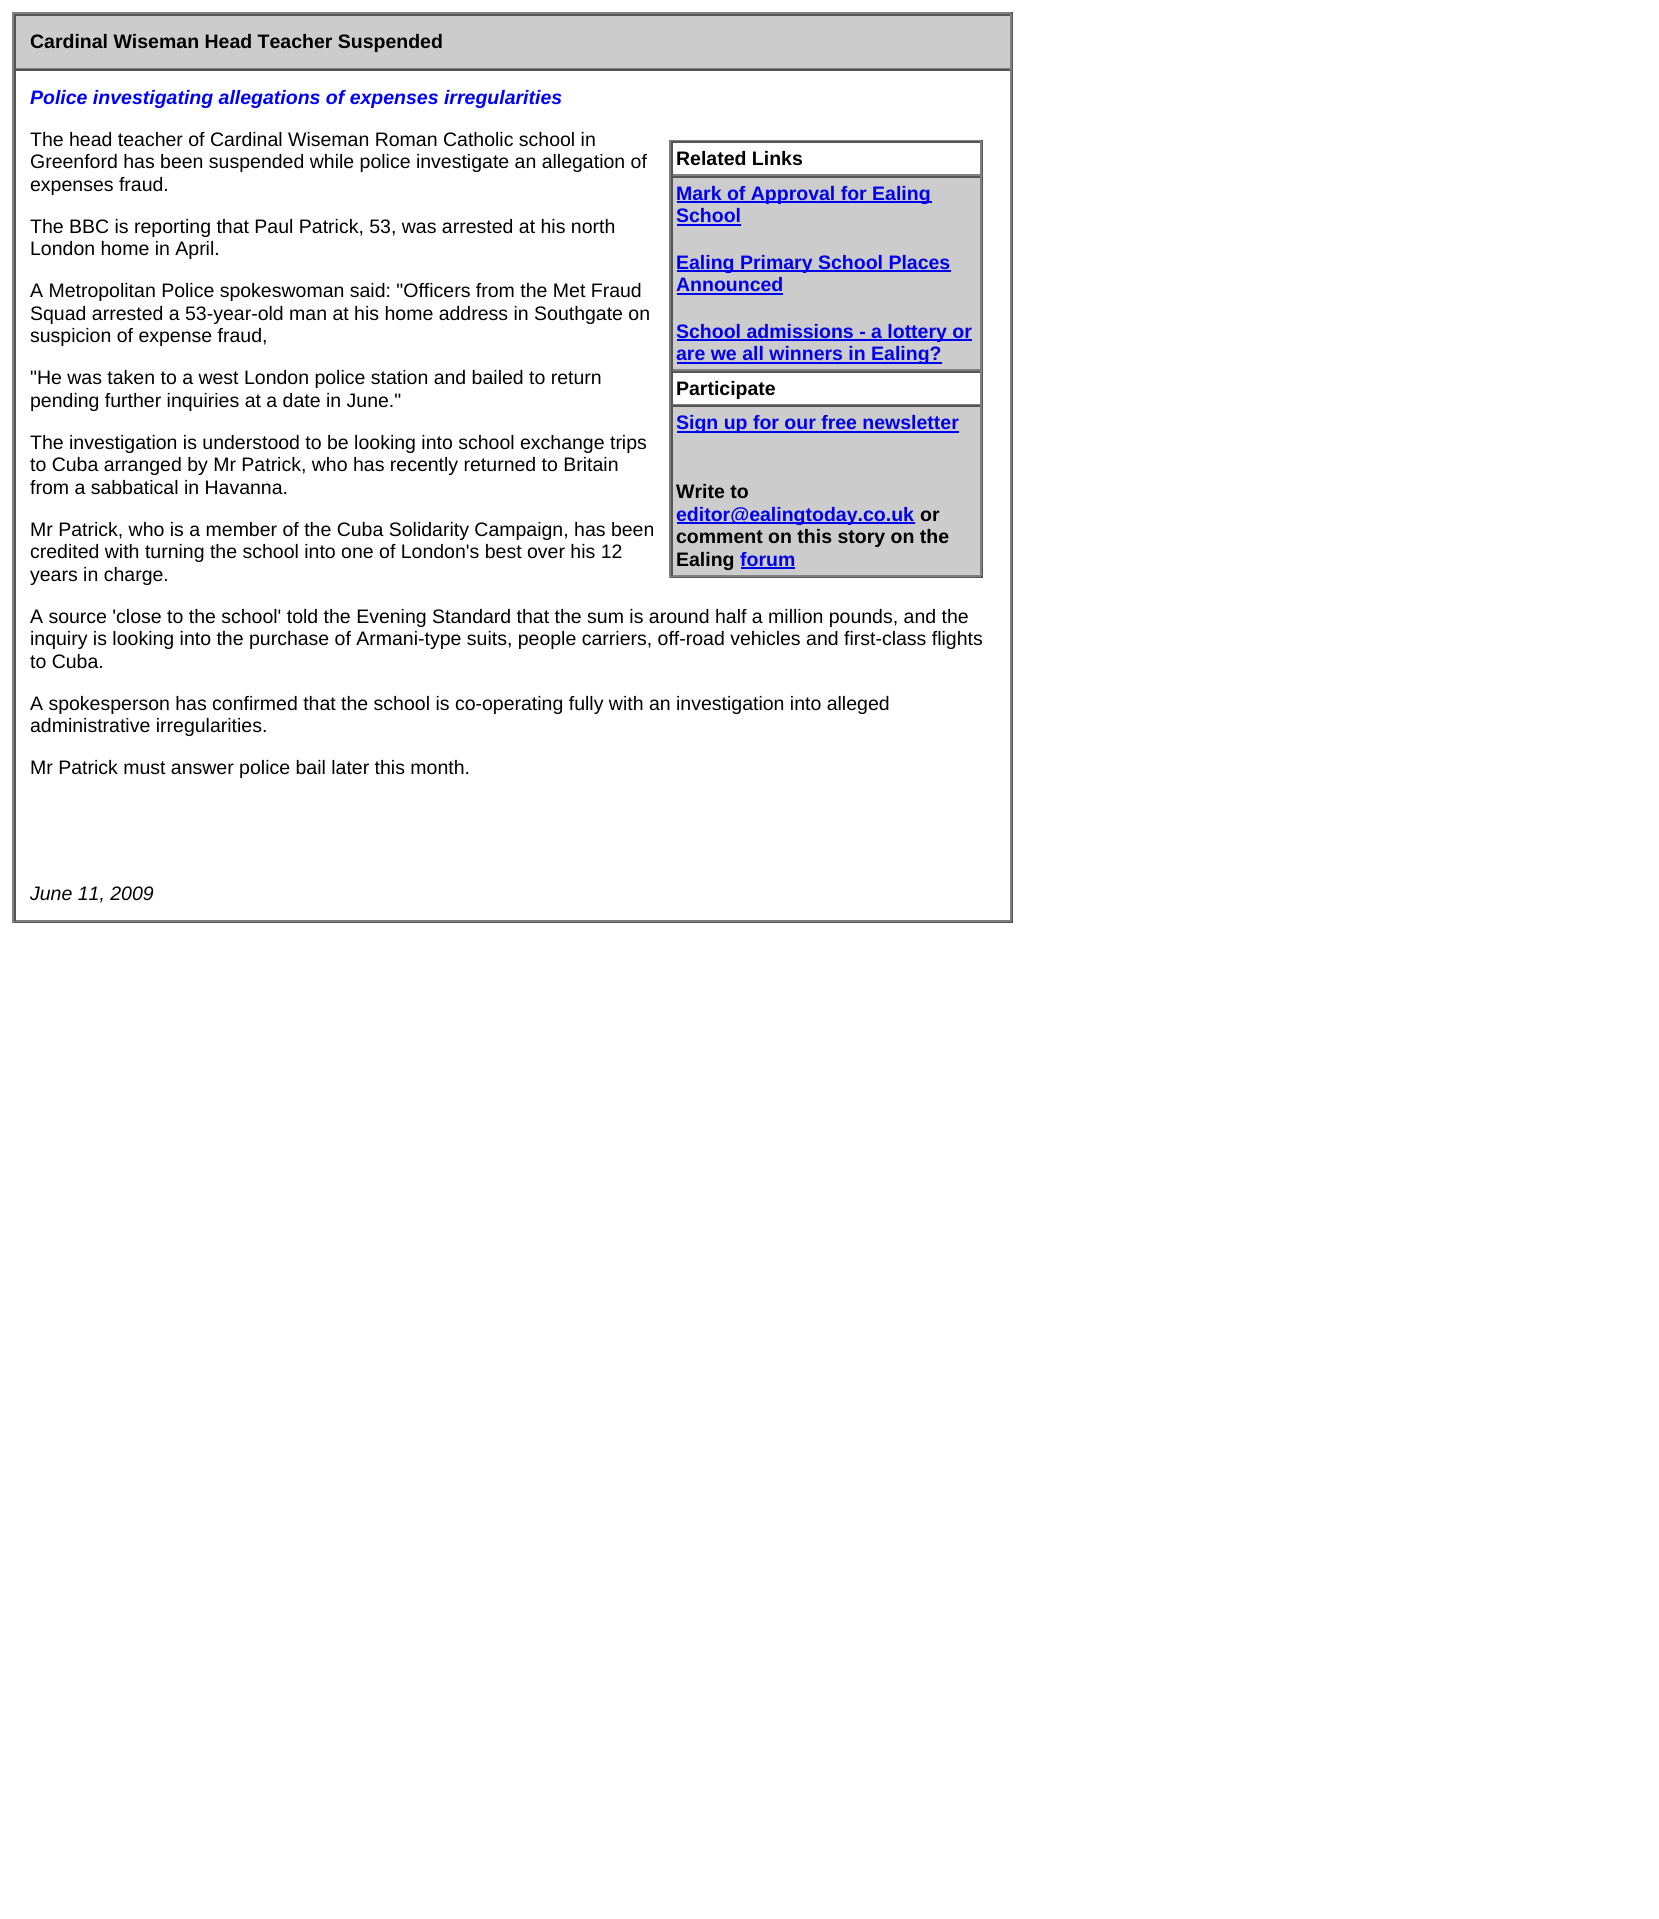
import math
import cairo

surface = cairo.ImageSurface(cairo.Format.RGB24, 1659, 1919)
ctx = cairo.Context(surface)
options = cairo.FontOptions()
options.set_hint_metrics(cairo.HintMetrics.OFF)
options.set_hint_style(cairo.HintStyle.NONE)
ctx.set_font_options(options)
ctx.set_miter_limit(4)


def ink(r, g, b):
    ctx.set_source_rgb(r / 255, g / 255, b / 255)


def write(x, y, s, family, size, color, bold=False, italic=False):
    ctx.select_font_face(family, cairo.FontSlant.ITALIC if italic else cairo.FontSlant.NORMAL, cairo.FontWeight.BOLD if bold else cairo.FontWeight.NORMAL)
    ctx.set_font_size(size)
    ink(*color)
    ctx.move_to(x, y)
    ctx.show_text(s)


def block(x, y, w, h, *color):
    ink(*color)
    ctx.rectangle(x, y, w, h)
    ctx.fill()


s1 = dict(family="Liberation Sans", size=19.5, color=(0, 0, 0), bold=True)
s2 = dict(family="Liberation Sans", size=19.5, color=(0, 0, 255), bold=True, italic=True)
s3 = dict(family="Liberation Sans", size=19.5, color=(0, 0, 0))
s4 = dict(family="Liberation Sans", size=19.5, color=(0, 0, 238), bold=True)
s5 = dict(family="Liberation Sans", size=19.5, color=(0, 0, 0), italic=True)

ink(255, 255, 255)
ctx.paint()
block(12, 12, 1001, 2, 128, 128, 128)
block(1011, 12, 2, 911, 85, 85, 85)
block(12, 921, 1001, 2, 85, 85, 85)
block(12, 12, 2, 911, 128, 128, 128)
block(16, 16, 994, 52, 204, 204, 204)
block(14, 14, 997, 2, 85, 85, 85)
block(1010, 14, 2, 55, 128, 128, 128)
block(14, 68, 997, 1, 128, 128, 128)
block(14, 14, 2, 55, 85, 85, 85)
write(30, 48, "Cardinal Wiseman Head Teacher Suspended", **s1)
block(14, 69, 997, 2, 85, 85, 85)
block(1010, 69, 2, 852, 128, 128, 128)
block(14, 920, 997, 2, 128, 128, 128)
block(14, 69, 2, 852, 85, 85, 85)
write(30, 104, "Police investigating allegations of expenses irregularities", **s2)
write(30, 146, "The head teacher of Cardinal Wiseman Roman Catholic school in", **s3)
write(30, 168, "Greenford has been suspended while police investigate an allegation of", **s3)
write(30, 191, "expenses fraud.", **s3)
block(669, 140, 314, 1, 128, 128, 128)
block(981, 140, 2, 438, 85, 85, 85)
block(669, 576, 314, 2, 85, 85, 85)
block(669, 140, 2, 438, 128, 128, 128)
block(671, 141, 310, 2, 85, 85, 85)
block(980, 141, 2, 35, 128, 128, 128)
block(671, 174, 310, 2, 128, 128, 128)
block(671, 141, 2, 35, 85, 85, 85)
write(676, 165, "Related Links", **s1)
block(673, 178, 307, 191, 204, 204, 204)
block(671, 176, 310, 2, 85, 85, 85)
block(980, 176, 2, 195, 128, 128, 128)
block(671, 369, 310, 2, 128, 128, 128)
block(671, 176, 2, 195, 85, 85, 85)
block(677, 201, 255, 2, 0, 0, 238)
write(676, 200, "Mark of Approval for Ealing", **s4)
write(676, 222, "School", **s4)
block(677, 224, 64, 2, 0, 0, 238)
block(677, 270, 274, 2, 0, 0, 238)
write(676, 269, "Ealing Primary School Places", **s4)
write(676, 291, "Announced", **s4)
block(677, 293, 106, 2, 0, 0, 238)
block(677, 339, 295, 2, 0, 0, 238)
write(676, 338, "School admissions - a lottery or", **s4)
block(677, 362, 265, 2, 0, 0, 238)
write(676, 360, "are we all winners in Ealing?", **s4)
block(671, 371, 310, 2, 85, 85, 85)
block(980, 371, 2, 34, 128, 128, 128)
block(671, 404, 310, 1, 128, 128, 128)
block(671, 371, 2, 34, 85, 85, 85)
write(676, 395, "Participate", **s1)
block(673, 407, 307, 168, 204, 204, 204)
block(671, 405, 310, 2, 85, 85, 85)
block(980, 405, 2, 171, 128, 128, 128)
block(671, 575, 310, 2, 128, 128, 128)
block(671, 405, 2, 171, 85, 85, 85)
block(677, 431, 282, 2, 0, 0, 238)
write(676, 429, "Sign up for our free newsletter", **s4)
write(676, 498, "Write to", **s1)
block(677, 522, 238, 2, 0, 0, 238)
write(676, 521, "editor@ealingtoday.co.uk", **s4)
write(920, 521, "or", **s1)
write(676, 543, "comment on this story on the", **s1)
write(676, 566, "Ealing", **s1)
write(740, 566, "forum", **s4)
block(741, 567, 54, 2, 0, 0, 238)
write(30, 233, "The BBC is reporting that Paul Patrick, 53, was arrested at his north", **s3)
write(30, 255, "London home in April.", **s3)
write(30, 297, "A Metropolitan Police spokeswoman said: \"Officers from the Met Fraud", **s3)
write(30, 320, "Squad arrested a 53-year-old man at his home address in Southgate on", **s3)
write(30, 342, "suspicion of expense fraud,", **s3)
write(30, 384, "\"He was taken to a west London police station and bailed to return", **s3)
write(30, 407, "pending further inquiries at a date in June.\"", **s3)
write(30, 449, "The investigation is understood to be looking into school exchange trips", **s3)
write(30, 471, "to Cuba arranged by Mr Patrick, who has recently returned to Britain", **s3)
write(30, 494, "from a sabbatical in Havanna.", **s3)
write(30, 536, "Mr Patrick, who is a member of the Cuba Solidarity Campaign, has been", **s3)
write(30, 558, "credited with turning the school into one of London's best over his 12", **s3)
write(30, 581, "years in charge.", **s3)
write(30, 623, "A source 'close to the school' told the Evening Standard that the sum is around half a million pounds, and the", **s3)
write(30, 645, "inquiry is looking into the purchase of Armani-type suits, people carriers, off-road vehicles and first-class flights", **s3)
write(30, 668, "to Cuba.", **s3)
write(30, 710, "A spokesperson has confirmed that the school is co-operating fully with an investigation into alleged", **s3)
write(30, 732, "administrative irregularities.", **s3)
write(30, 774, "Mr Patrick must answer police bail later this month.", **s3)
write(30, 900, "June 11, 2009", **s5)
surface.write_to_png("screenshot.png")
